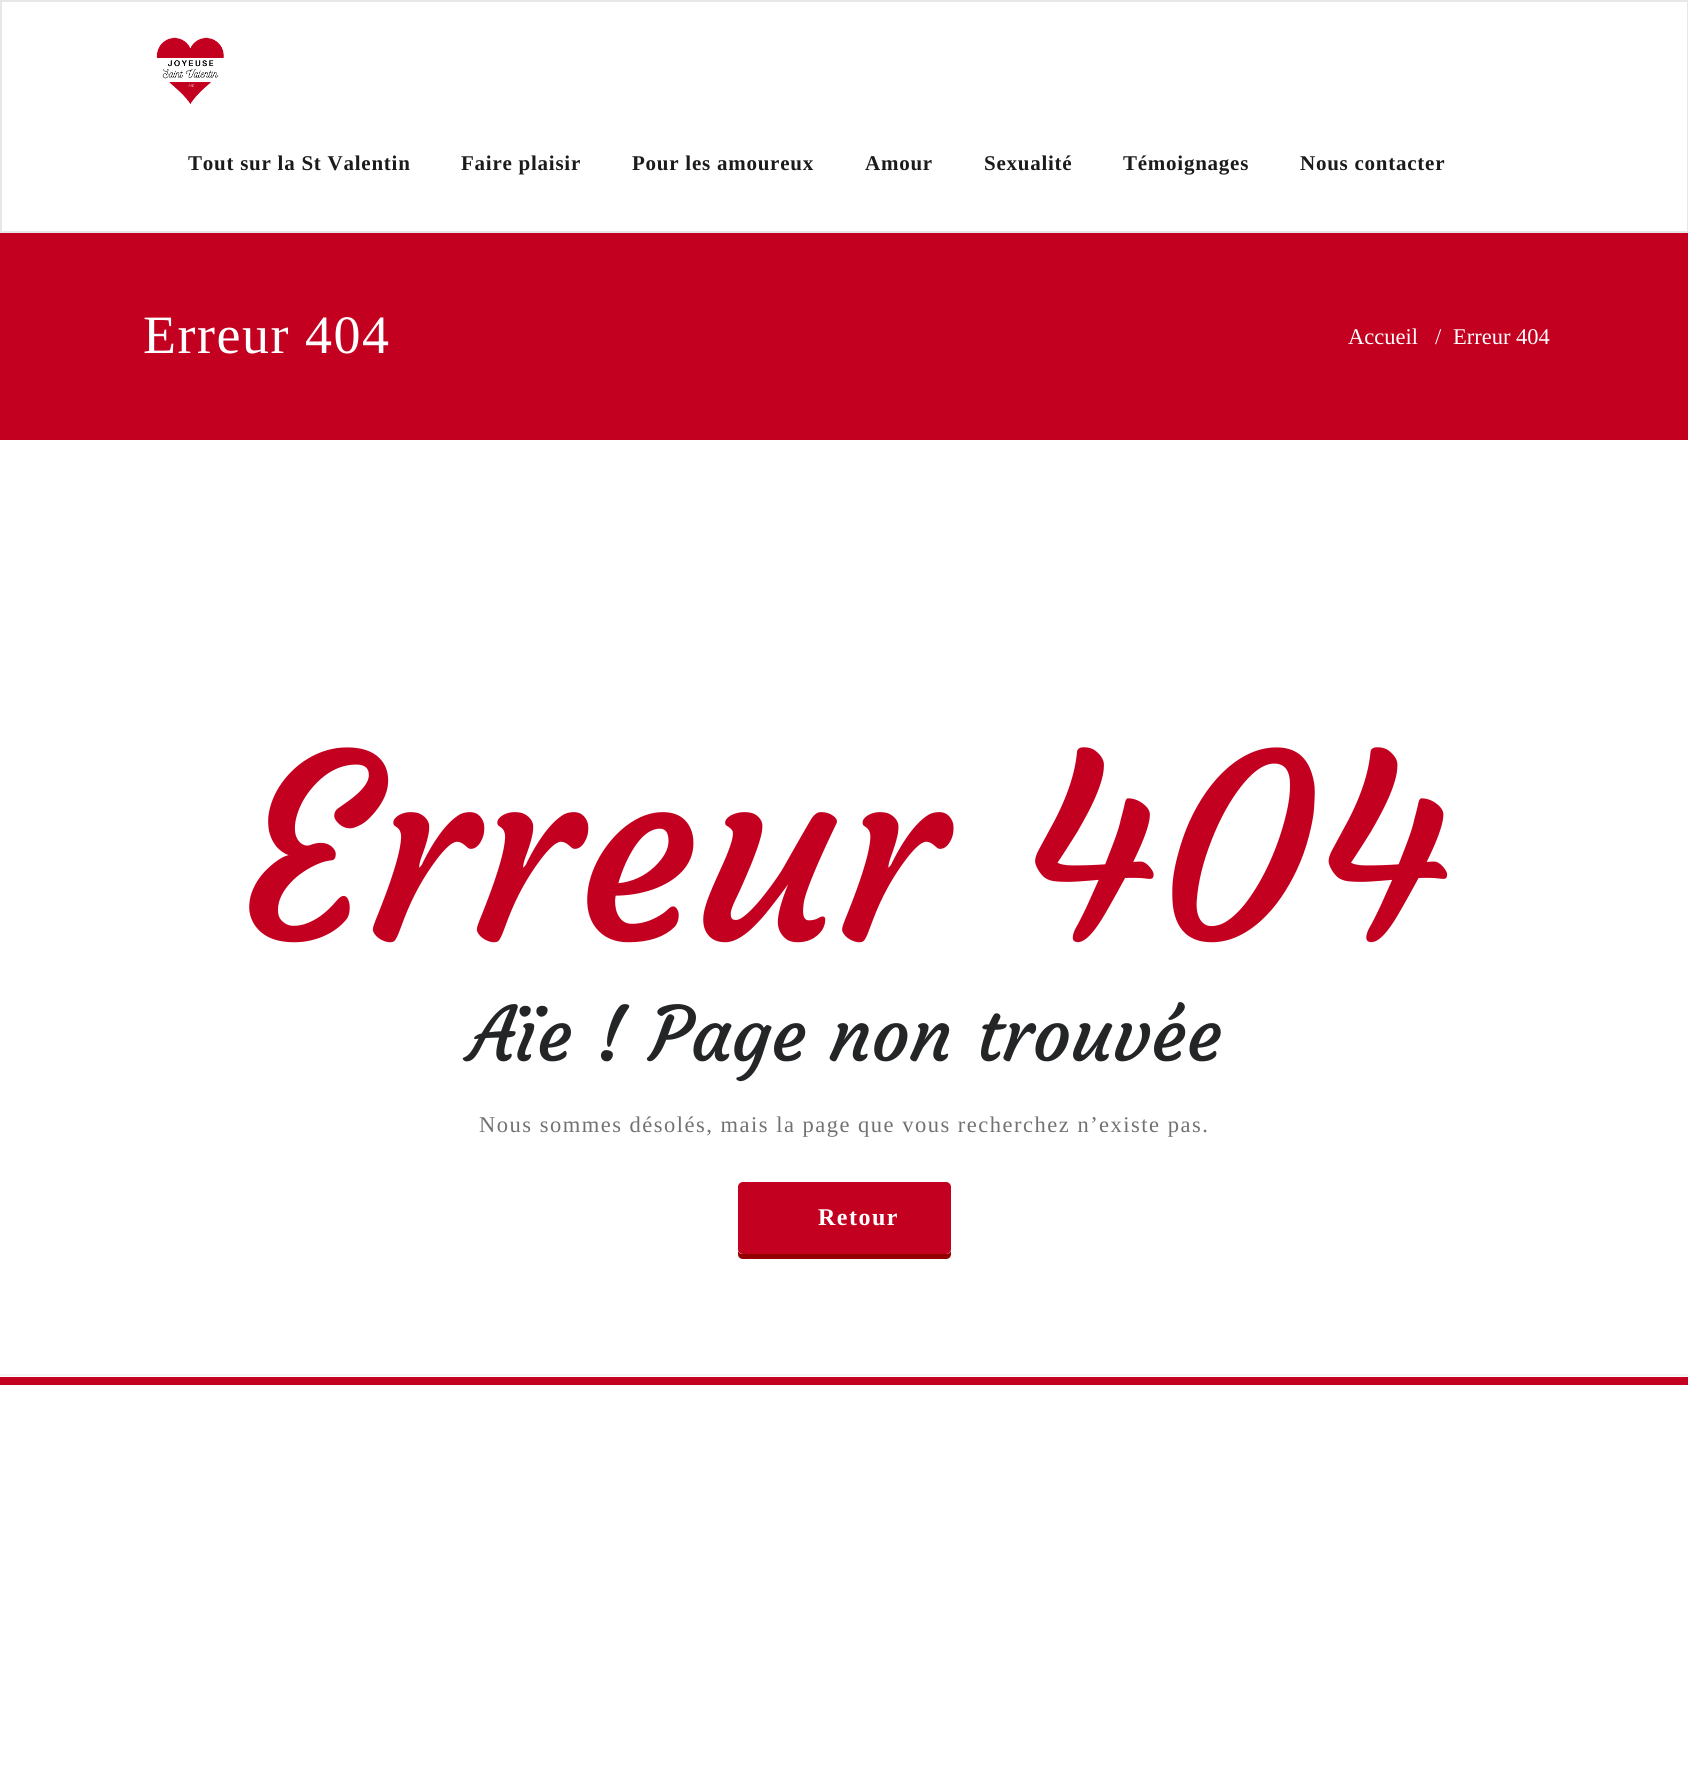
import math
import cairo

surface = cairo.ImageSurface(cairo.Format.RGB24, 1688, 1787)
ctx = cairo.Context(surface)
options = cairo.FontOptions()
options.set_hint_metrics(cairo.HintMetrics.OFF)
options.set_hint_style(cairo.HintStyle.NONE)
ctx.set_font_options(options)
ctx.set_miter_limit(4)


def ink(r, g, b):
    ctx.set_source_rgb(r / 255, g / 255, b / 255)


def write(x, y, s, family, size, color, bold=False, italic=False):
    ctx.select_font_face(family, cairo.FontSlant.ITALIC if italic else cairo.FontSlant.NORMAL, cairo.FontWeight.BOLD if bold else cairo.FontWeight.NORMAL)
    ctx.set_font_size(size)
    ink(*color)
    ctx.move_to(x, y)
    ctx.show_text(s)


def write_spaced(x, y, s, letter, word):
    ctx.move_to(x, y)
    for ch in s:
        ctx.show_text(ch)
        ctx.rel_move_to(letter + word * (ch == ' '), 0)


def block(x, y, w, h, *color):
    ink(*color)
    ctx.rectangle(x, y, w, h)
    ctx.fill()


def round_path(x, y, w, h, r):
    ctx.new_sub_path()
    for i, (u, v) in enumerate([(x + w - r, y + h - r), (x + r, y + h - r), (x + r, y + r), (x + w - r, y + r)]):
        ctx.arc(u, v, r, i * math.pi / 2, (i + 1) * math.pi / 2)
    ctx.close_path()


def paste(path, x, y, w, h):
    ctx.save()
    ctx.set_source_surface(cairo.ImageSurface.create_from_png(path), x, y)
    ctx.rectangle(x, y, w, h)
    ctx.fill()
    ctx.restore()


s1 = dict(family="Liberation Serif", size=22.5, color=(255, 255, 255))
s2 = dict(family="Courgette", size=255, color=(196, 0, 32))
s3 = dict(family="Courgette", size=75, color=(36, 37, 38))

ink(255, 255, 255)
ctx.paint()
ctx.rectangle(1, 1, 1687, 231)
ink(231, 231, 231)
ctx.stroke()
paste("pic1.png", 156, 37, 68, 67)
ctx.select_font_face("Liberation Serif", cairo.FontSlant.NORMAL, cairo.FontWeight.BOLD)
ctx.set_font_size(21)
ink(27, 27, 27)
write_spaced(188, 170, "Tout sur la St Valentin", 0.75, 0)
write_spaced(461, 170, "Faire plaisir", 0.75, 0)
write_spaced(632, 170, "Pour les amoureux", 0.75, 0)
write_spaced(865, 170, "Amour", 0.75, 0)
write_spaced(984, 170, "Sexualité", 0.75, 0)
write_spaced(1123, 170, "Témoignages", 0.75, 0)
write_spaced(1300, 170, "Nous contacter", 0.75, 0)
block(0, 233, 1688, 207, 196, 0, 32)
ctx.select_font_face("Liberation Serif")
ctx.set_font_size(54)
ink(255, 255, 255)
write_spaced(143, 353, "Erreur 404", 1.5, 0)
write(1348, 344, "Accueil", **s1)
write(1435, 344, "/", **s1)
write(1453, 344, "Erreur 404", **s1)
write(239, 941, "Erreur 404", **s2)
write(469, 1061, "Aïe ! Page non trouvée", **s3)
ctx.select_font_face("Liberation Serif")
ctx.set_font_size(22.5)
ink(114, 114, 114)
write_spaced(479, 1132, "Nous sommes désolés, mais la page que vous recherchez n’existe pas.", 1.5, 0)
ink(146, 0, 0)
ctx.new_path()
ctx.move_to(738, 1250)
ctx.line_to(738, 1254)
ctx.curve_to(738, 1257, 740, 1259, 743, 1259)
ctx.line_to(946, 1259)
ctx.curve_to(949, 1259, 951, 1257, 951, 1254)
ctx.line_to(951, 1250)
ctx.curve_to(951, 1252, 949, 1254, 946, 1254)
ctx.line_to(742, 1254)
ctx.curve_to(740, 1254, 738, 1252, 738, 1250)
ctx.close_path()
ctx.fill()
ink(196, 0, 32)
round_path(738, 1182, 213, 72, 5)
ctx.fill()
ctx.select_font_face("Liberation Serif", cairo.FontSlant.NORMAL, cairo.FontWeight.BOLD)
ctx.set_font_size(24)
ink(255, 255, 255)
write_spaced(818, 1225, "Retour", 1.5, 0)
block(0, 1374, 1688, 2, 244, 244, 244)
block(0, 1377, 1688, 8, 196, 0, 32)
surface.write_to_png("screenshot.png")
